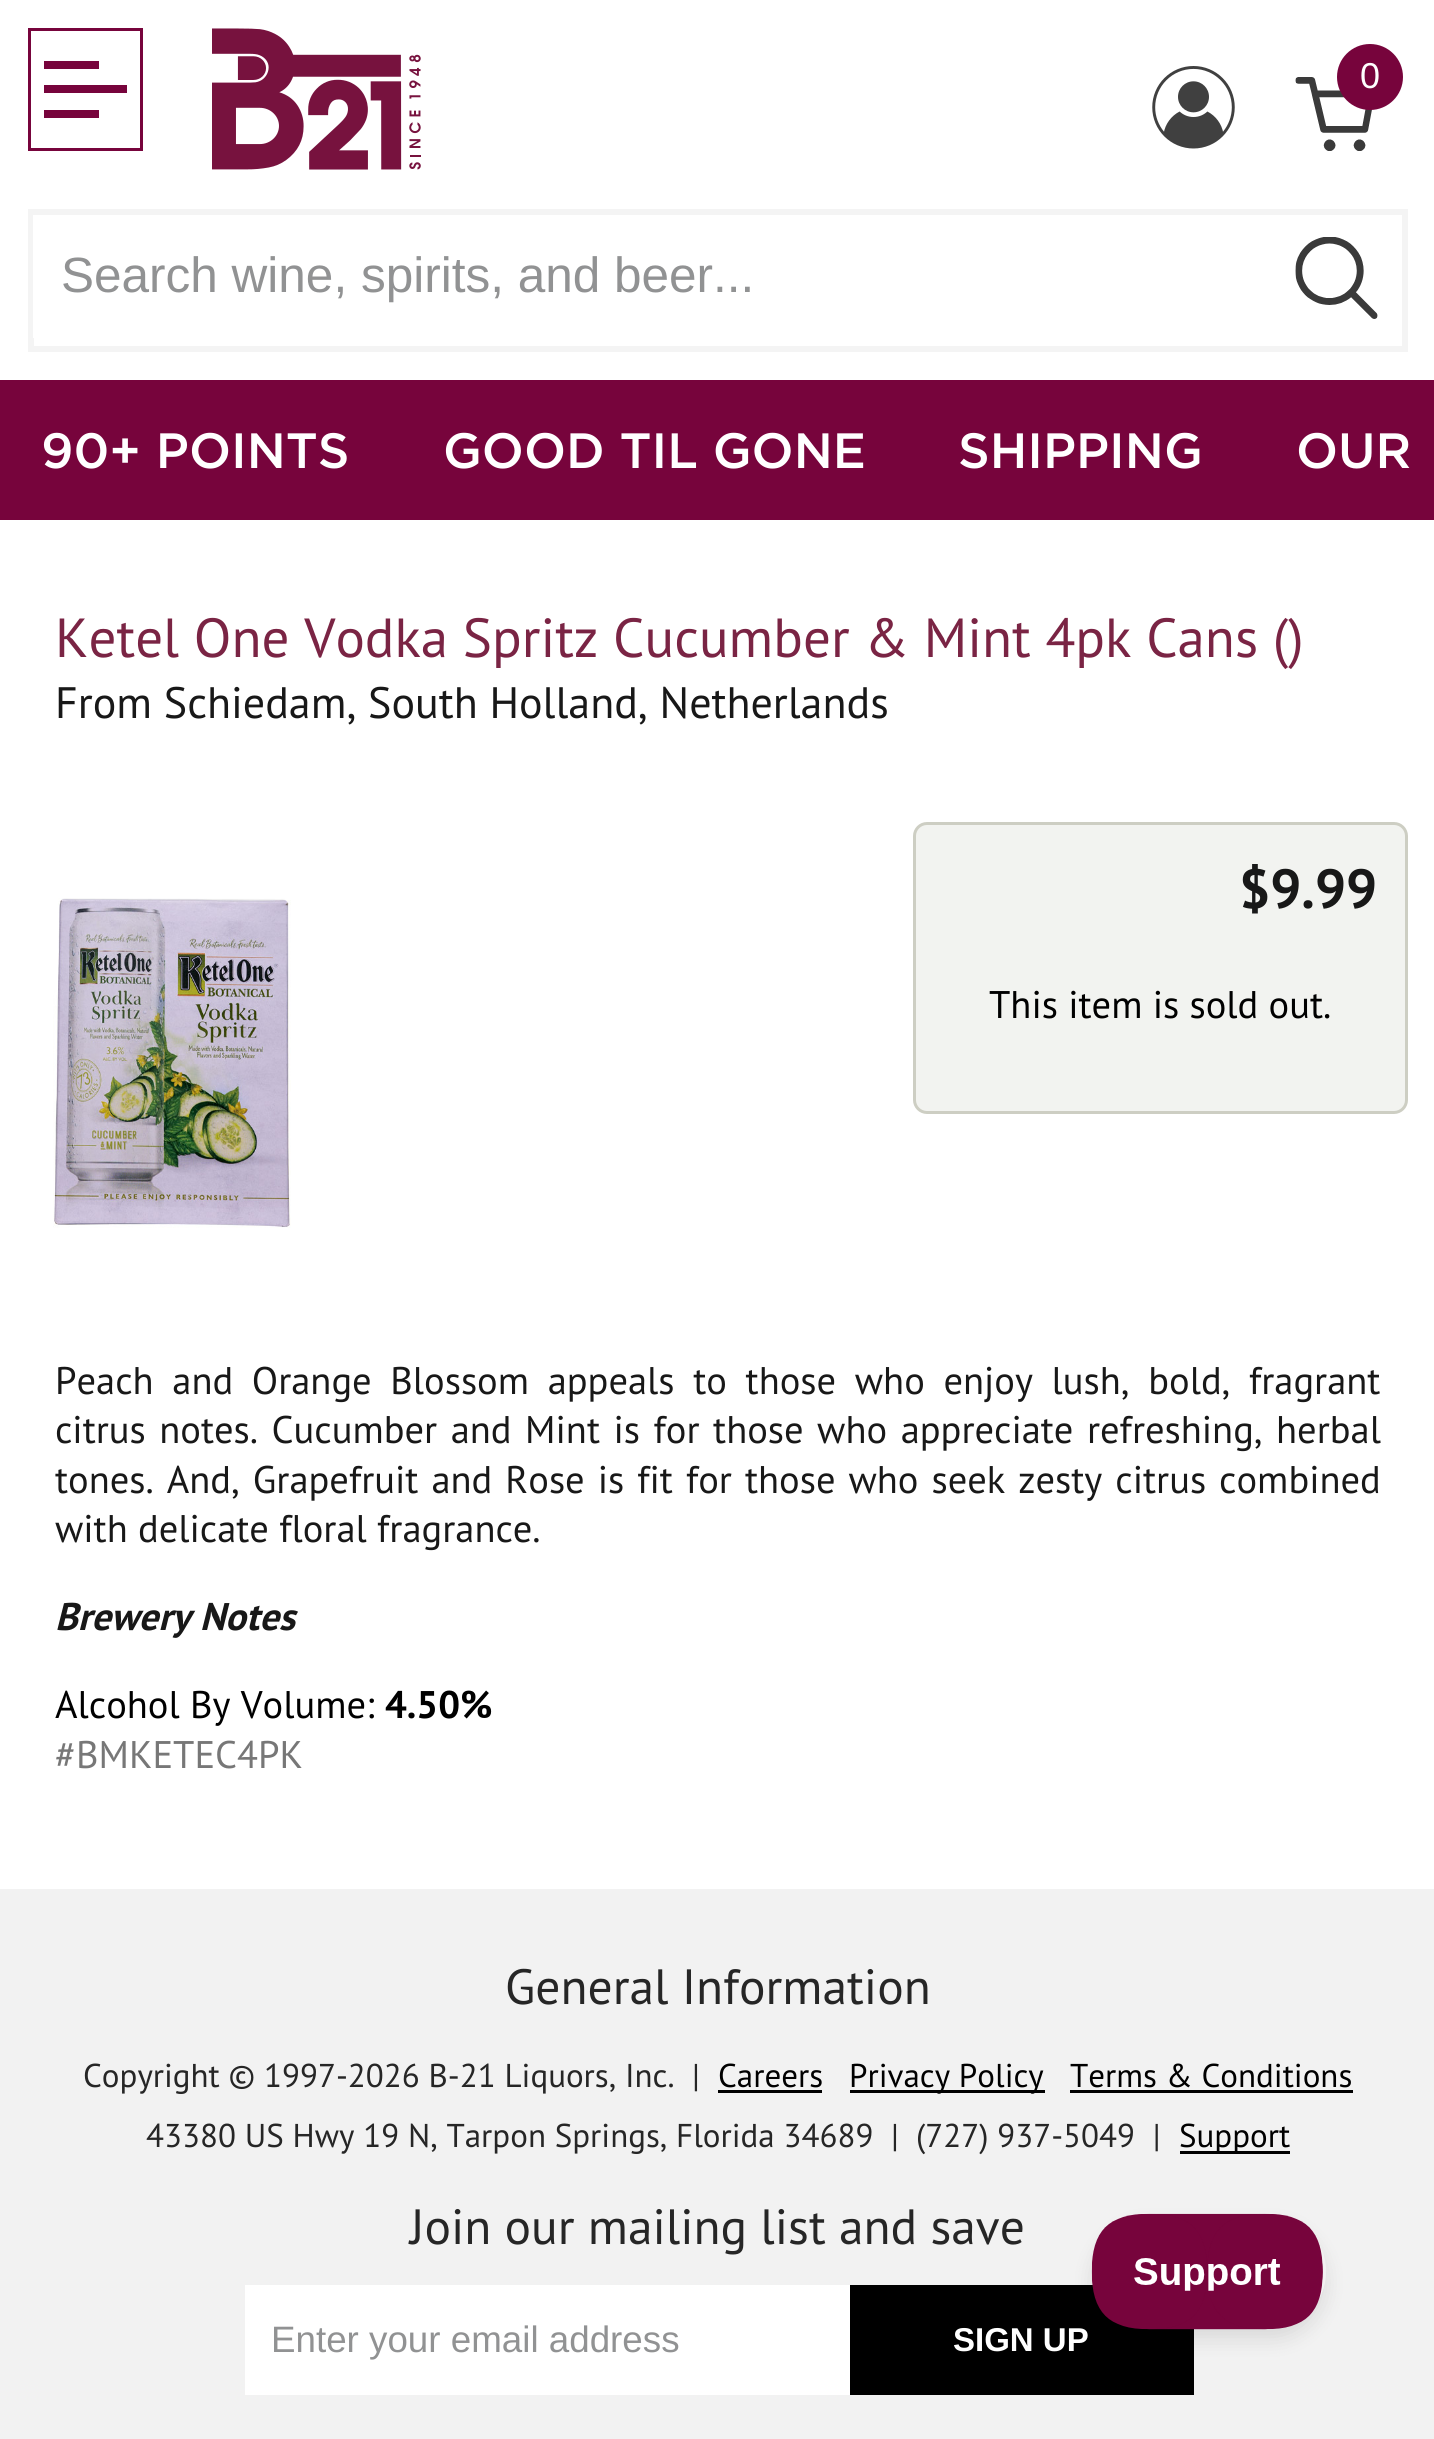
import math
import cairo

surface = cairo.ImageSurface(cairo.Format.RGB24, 1434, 2439)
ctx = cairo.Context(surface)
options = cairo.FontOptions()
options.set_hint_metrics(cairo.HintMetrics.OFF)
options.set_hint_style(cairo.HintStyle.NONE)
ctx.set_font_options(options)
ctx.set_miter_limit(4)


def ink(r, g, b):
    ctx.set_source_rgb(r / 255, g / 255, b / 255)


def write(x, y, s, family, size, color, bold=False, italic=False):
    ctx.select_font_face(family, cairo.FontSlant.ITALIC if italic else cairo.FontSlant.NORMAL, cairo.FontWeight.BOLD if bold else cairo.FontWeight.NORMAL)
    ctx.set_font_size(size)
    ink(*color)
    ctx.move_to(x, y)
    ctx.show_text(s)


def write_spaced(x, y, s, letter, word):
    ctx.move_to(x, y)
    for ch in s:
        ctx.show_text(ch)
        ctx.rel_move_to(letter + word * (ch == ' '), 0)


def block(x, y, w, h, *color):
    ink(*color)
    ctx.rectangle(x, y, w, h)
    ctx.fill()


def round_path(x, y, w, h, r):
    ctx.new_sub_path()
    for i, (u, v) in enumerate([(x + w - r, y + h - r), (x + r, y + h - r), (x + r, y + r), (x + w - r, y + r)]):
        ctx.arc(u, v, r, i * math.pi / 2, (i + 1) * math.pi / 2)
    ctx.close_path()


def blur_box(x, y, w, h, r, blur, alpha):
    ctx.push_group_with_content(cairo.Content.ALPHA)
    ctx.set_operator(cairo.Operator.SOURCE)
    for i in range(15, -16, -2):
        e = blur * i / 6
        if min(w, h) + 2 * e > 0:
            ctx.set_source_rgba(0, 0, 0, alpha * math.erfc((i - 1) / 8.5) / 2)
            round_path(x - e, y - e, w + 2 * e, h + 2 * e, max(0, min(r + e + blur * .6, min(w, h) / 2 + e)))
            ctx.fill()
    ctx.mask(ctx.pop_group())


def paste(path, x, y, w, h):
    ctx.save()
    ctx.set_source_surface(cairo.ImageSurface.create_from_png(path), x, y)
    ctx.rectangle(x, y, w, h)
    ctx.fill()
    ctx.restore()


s1 = dict(family="Liberation Sans", size=36, color=(255, 255, 255))
s2 = dict(family="Liberation Sans", size=49.5, color=(145, 146, 147))
s3 = dict(family="Gotham Medium", size=49.5, color=(255, 255, 255))
s4 = dict(family="PT Sans", size=55, color=(122, 36, 68))
s5 = dict(family="PT Sans", size=44, color=(24, 24, 24))
s6 = dict(family="PT Sans", size=55, color=(24, 24, 24), bold=True)
s7 = dict(family="PT Sans", size=38.5, color=(0, 0, 0))
s8 = dict(family="PT Sans", size=38.5, color=(24, 24, 24))
s9 = dict(family="PT Sans", size=38.5, color=(24, 24, 24), bold=True, italic=True)
s10 = dict(family="PT Sans", size=38.5, color=(0, 0, 0), bold=True)
s11 = dict(family="PT Sans", size=38.5, color=(119, 119, 119))
s12 = dict(family="PT Sans", size=49.5, color=(38, 38, 38))
s13 = dict(family="PT Sans", size=33, color=(38, 38, 38))
s14 = dict(family="PT Sans", size=33, color=(0, 0, 0))
s15 = dict(family="Liberation Sans", size=36.75, color=(145, 146, 147))
s16 = dict(family="Liberation Sans", size=33, color=(255, 255, 255), bold=True)

ink(255, 255, 255)
ctx.paint()
ctx.rectangle(29.5, 29.5, 112, 120)
ink(119, 4, 60)
ctx.set_line_width(3)
ctx.stroke()
block(44, 61, 55, 8, 119, 4, 60)
block(44, 85, 83, 8, 119, 4, 60)
block(44, 110, 55, 8, 119, 4, 60)
paste("pic1.png", 212, 28, 209, 142)
paste("pic2.png", 1152, 66, 83, 83)
paste("pic3.png", 1295, 77, 77, 74)
ctx.arc(1370, 77, 33, 0, 2 * math.pi)
ctx.fill()
write(1360, 88, "0", **s1)
ctx.rectangle(31, 212, 1374, 137)
ink(244, 244, 244)
ctx.set_line_width(6)
ctx.stroke()
block(33, 215, 1, 123, 255, 255, 255)
write(61, 292, "Search wine, spirits, and beer...", **s2)
paste("pic4.png", 1295, 237, 83, 82)
block(0, 380, 1434, 140, 119, 4, 60)
write(41, 468, "90+ POINTS", **s3)
write(443, 468, "GOOD TIL GONE", **s3)
write(958, 468, "SHIPPING", **s3)
write(1296, 468, "OUR", **s3)
write(55, 657, "Ketel One Vodka Spritz Cucumber & Mint 4pk Cans ()", **s4)
write(55, 718, "From Schiedam, South Holland, Netherlands", **s5)
paste("pic5.png", 53, 898, 238, 330)
ink(242, 243, 240)
round_path(914.5, 823.5, 492, 289, 12.5)
ctx.fill_preserve()
ink(205, 206, 195)
ctx.set_line_width(3)
ctx.stroke()
write(1239, 908, "$9.99", **s6)
write(989, 1018, "This item is sold out.", **s7)
ink(24, 24, 24)
write_spaced(55, 1394, "Peach and Orange Blossom appeals to those who enjoy lush, bold, fragrant", 0, 8.4)
write_spaced(55, 1443, "citrus notes. Cucumber and Mint is for those who appreciate refreshing, herbal", 0, 3.25)
write_spaced(55, 1493, "tones. And, Grapefruit and Rose is fit for those who seek zesty citrus combined", 0, 2.75)
write(55, 1542, "with delicate floral fragrance.", **s8)
write(55, 1630, "Brewery Notes", **s9)
write(55, 1718, "Alcohol By Volume:", **s7)
write(385, 1718, "4.50%", **s10)
write(55, 1768, "#BMKETEC4PK", **s11)
block(0, 1889, 1434, 550, 242, 242, 242)
write(505, 2004, "General Information", **s12)
write(83, 2087, "Copyright © 1997-2026 B-21 Liquors, Inc.", **s13)
write(692, 2087, "|", **s13)
write(718, 2087, "Careers", **s14)
block(718, 2090, 104, 3, 0, 0, 0)
block(850, 2090, 195, 3, 0, 0, 0)
write(849, 2087, "Privacy Policy", **s14)
write(1070, 2087, "Terms & Conditions", **s14)
block(1070, 2090, 283, 3, 0, 0, 0)
write(146, 2147, "43380 US Hwy 19 N, Tarpon Springs, Florida 34689", **s13)
write(891, 2147, "|", **s13)
write(916, 2147, "(727) 937-5049  |", **s13)
block(1180, 2151, 110, 3, 0, 0, 0)
write(1179, 2147, "Support", **s14)
write(410, 2244, "Join our mailing list and save", **s12)
block(245, 2285, 605, 110, 255, 255, 255)
write(271, 2352, "Enter your email address", **s15)
block(850, 2285, 344, 110, 0, 0, 0)
write(953, 2351, "SIGN UP", **s16)
ctx.save()
ctx.set_fill_rule(cairo.FillRule.EVEN_ODD)
ctx.new_path()
ctx.move_to(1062, 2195)
ctx.line_to(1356, 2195)
ctx.line_to(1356, 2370)
ctx.line_to(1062, 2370)
ctx.close_path()
ctx.move_to(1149.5, 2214)
ctx.line_to(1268.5, 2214)
ctx.curve_to(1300.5, 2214, 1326, 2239.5, 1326, 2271.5)
ctx.curve_to(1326, 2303.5, 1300.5, 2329, 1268.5, 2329)
ctx.line_to(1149.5, 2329)
ctx.curve_to(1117.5, 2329, 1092, 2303.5, 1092, 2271.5)
ctx.curve_to(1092, 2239.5, 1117.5, 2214, 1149.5, 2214)
ctx.close_path()
ctx.clip()
ink(0, 0, 0)
blur_box(1092, 2225, 234, 115, 57.5, 9.5, 0.1)
ctx.restore()
paste("pic6.png", 1091, 2213, 232, 117)
surface.write_to_png("screenshot.png")
